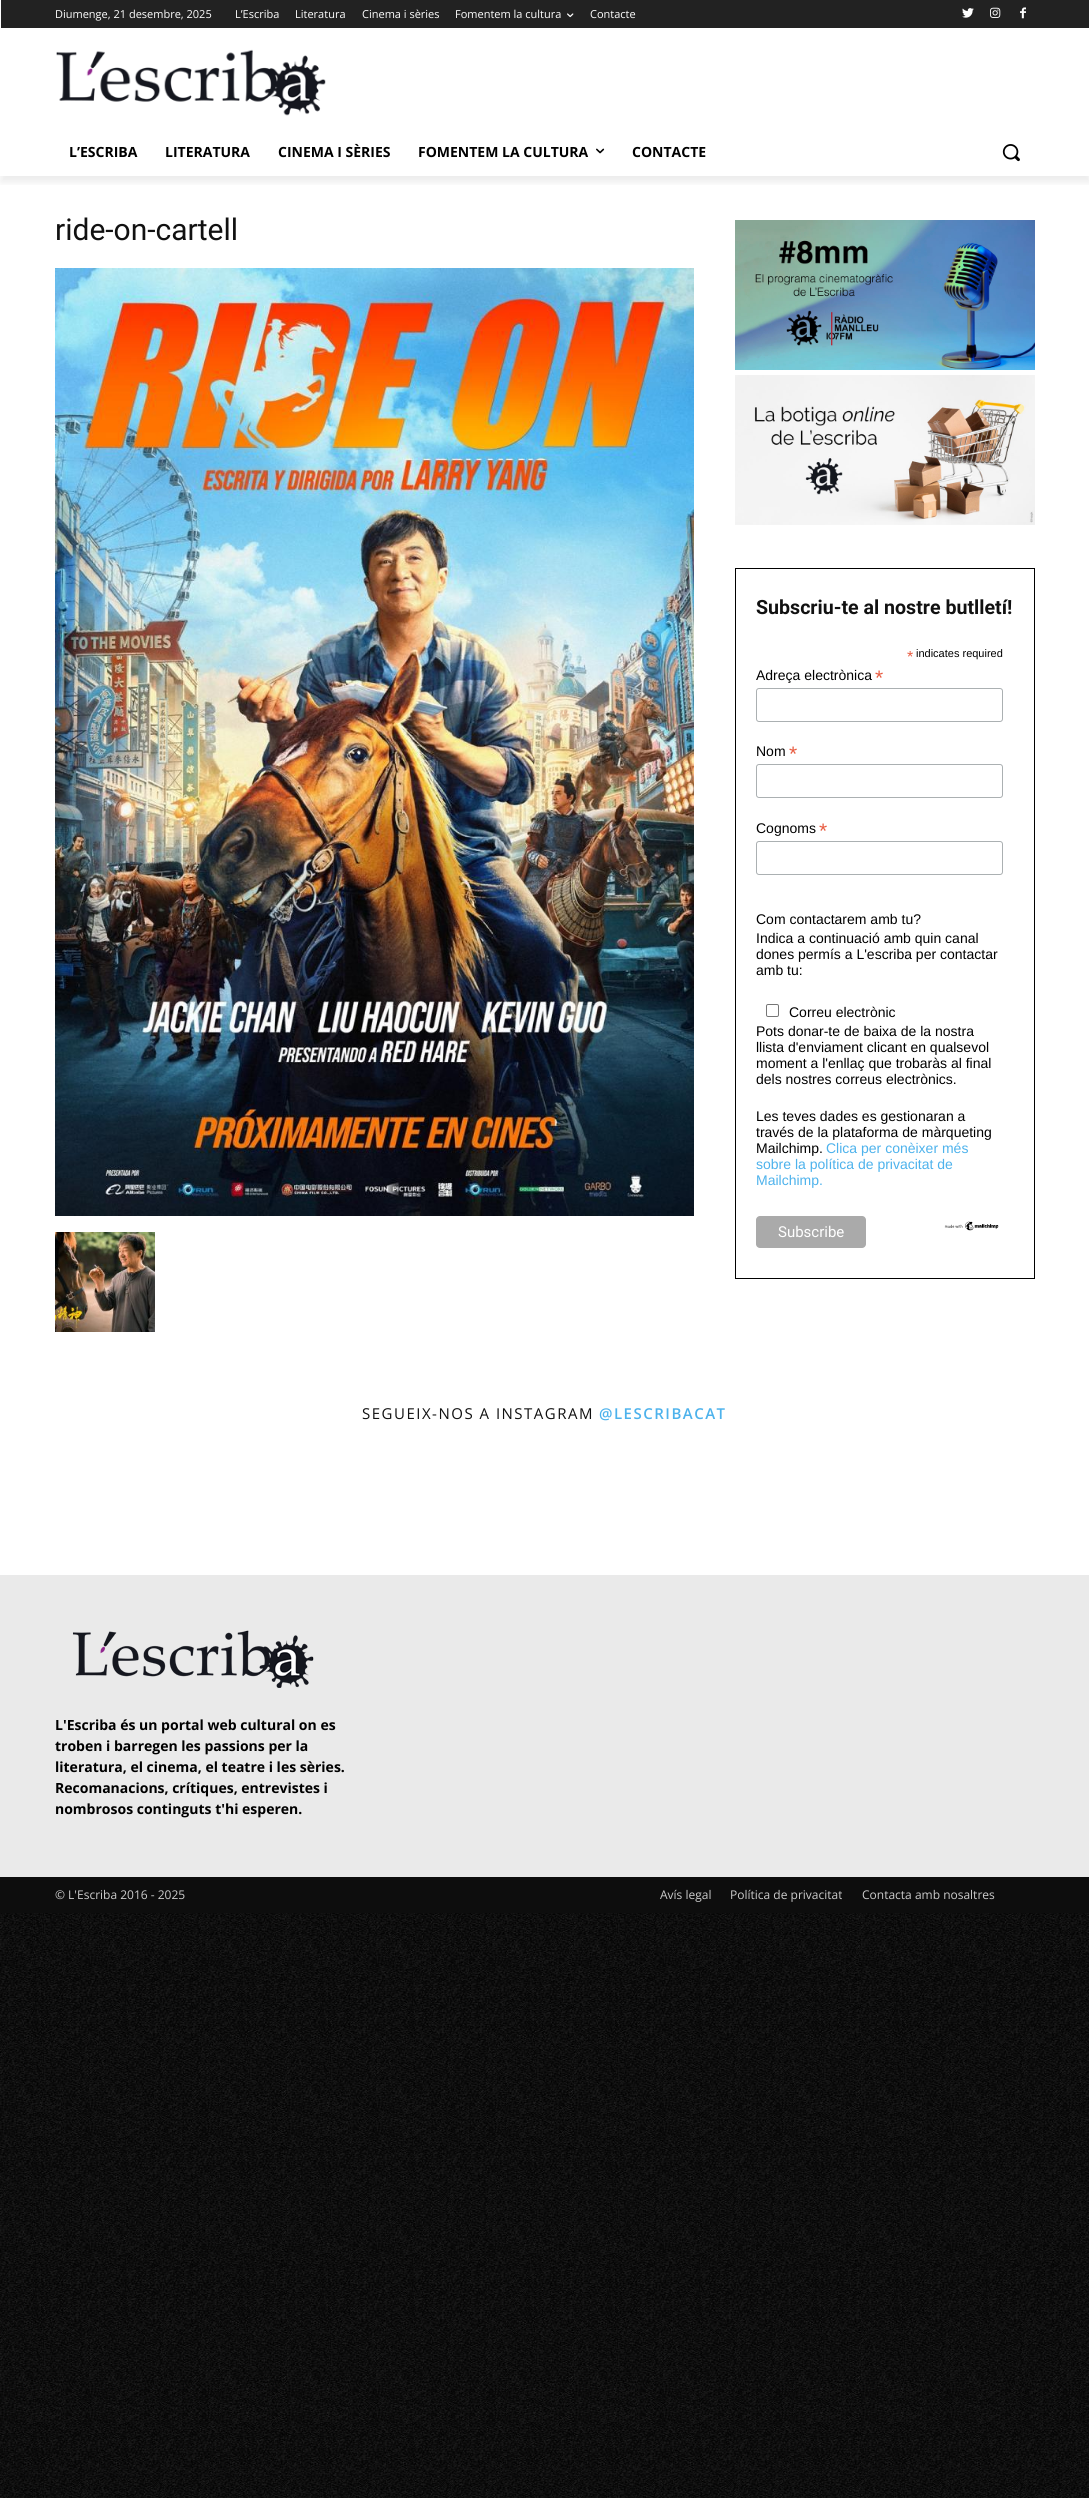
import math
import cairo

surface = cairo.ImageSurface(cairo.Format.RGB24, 1089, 2498)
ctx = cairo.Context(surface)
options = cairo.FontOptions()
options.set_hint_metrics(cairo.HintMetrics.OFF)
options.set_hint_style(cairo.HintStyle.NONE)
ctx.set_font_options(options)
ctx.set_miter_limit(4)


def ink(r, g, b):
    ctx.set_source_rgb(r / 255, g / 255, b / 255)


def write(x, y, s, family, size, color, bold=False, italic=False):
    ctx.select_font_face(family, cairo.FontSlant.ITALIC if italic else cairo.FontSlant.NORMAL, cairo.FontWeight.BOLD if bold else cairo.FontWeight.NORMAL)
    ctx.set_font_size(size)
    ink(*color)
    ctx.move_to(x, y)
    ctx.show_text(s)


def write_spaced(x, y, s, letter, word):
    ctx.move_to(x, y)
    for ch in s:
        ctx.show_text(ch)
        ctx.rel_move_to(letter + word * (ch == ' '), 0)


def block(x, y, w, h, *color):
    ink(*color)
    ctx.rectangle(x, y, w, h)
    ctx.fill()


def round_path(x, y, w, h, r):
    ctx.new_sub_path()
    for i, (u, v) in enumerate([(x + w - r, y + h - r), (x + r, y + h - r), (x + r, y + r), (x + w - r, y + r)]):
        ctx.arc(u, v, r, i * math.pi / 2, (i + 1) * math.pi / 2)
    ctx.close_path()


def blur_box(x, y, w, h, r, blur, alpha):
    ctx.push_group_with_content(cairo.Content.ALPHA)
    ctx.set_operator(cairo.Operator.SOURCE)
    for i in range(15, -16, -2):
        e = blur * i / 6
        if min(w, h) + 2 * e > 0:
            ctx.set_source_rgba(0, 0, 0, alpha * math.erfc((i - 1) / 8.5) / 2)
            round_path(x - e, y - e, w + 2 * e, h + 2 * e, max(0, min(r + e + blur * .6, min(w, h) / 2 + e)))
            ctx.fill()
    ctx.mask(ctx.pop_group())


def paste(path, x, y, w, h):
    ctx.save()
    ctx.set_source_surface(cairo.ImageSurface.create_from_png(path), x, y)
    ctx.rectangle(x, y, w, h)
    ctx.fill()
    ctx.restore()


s1 = dict(family="Open Sans", size=11, color=(255, 255, 255))
s2 = dict(family="Open Sans", size=14, color=(0, 0, 0), bold=True)
s3 = dict(family="Roboto", size=30, color=(17, 17, 17))
s4 = dict(family="Roboto", size=19.6, color=(17, 17, 17), bold=True)
s5 = dict(family="Liberation Sans", size=16, color=(232, 92, 65))
s6 = dict(family="Liberation Sans", size=11, color=(0, 0, 0))
s7 = dict(family="Liberation Sans", size=14, color=(0, 0, 0))
s8 = dict(family="Liberation Sans", size=21, color=(232, 92, 65))
s9 = dict(family="Liberation Sans", size=14, color=(77, 178, 236))
s10 = dict(family="Roboto", size=15, color=(255, 255, 255))
s11 = dict(family="Open Sans", size=12, color=(204, 204, 204))

ink(255, 255, 255)
ctx.paint()
paste("pic1.png", 0, 1913, 1089, 585)
block(1, 0, 1088, 28, 34, 34, 34)
paste("pic3.png", 962, 8, 12, 10)
paste("pic4.png", 990, 7, 11, 11)
paste("pic5.png", 1020, 7, 6, 12)
paste("pic6.png", 56, 49, 270, 67)
ctx.save()
ctx.rectangle(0, 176, 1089, 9)
ctx.clip()
ink(0, 0, 0)
blur_box(1, 6, 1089, 176, 0, 4, 0.08)
ctx.restore()
write(55, 18, "Diumenge, 21 desembre, 2025", **s1)
write(235, 18, "L’Escriba", **s1)
write(295, 18, "Literatura", **s1)
write(362, 18, "Cinema i sèries", **s1)
write(455, 18, "Fomentem la cultura", **s1)
paste("pic2.png", 567, 13, 7, 5)
write(590, 18, "Contacte", **s1)
write(69, 157, "L’ESCRIBA", **s2)
write(165, 157, "LITERATURA", **s2)
write(278, 157, "CINEMA I SÈRIES", **s2)
write(418, 157, "FOMENTEM LA CULTURA", **s2)
paste("pic7.png", 596, 148, 9, 6)
write(632, 157, "CONTACTE", **s2)
paste("pic8.png", 1002, 144, 18, 18)
write(55, 240, "ride-on-cartell", **s3)
paste("pic9.png", 55, 268, 639, 948)
paste("pic10.png", 55, 1232, 100, 100)
paste("pic11.png", 735, 220, 300, 150)
paste("pic12.png", 735, 375, 300, 150)
ctx.rectangle(735.5, 568.5, 299, 710)
ink(0, 0, 0)
ctx.set_line_width(1)
ctx.stroke()
write(756, 614, "Subscriu-te al nostre butlletí!", **s4)
write(907, 662, "*", **s5)
write(916, 657, "indicates required", **s6)
write(756, 680, "Adreça electrònica", **s7)
write(875, 685, "*", **s8)
round_path(756.5, 688.5, 246, 33, 2.5)
ink(171, 176, 178)
ctx.stroke()
write(756, 756, "Nom", **s7)
write(789, 761, "*", **s8)
round_path(756.5, 764.5, 246, 33, 2.5)
ink(171, 176, 178)
ctx.stroke()
write(756, 833, "Cognoms", **s7)
write(819, 838, "*", **s8)
round_path(756.5, 841.5, 246, 33, 2.5)
ink(171, 176, 178)
ctx.stroke()
write(756, 924, "Com contactarem amb tu?", **s7)
write(756, 943, "Indica a continuació amb quin canal", **s7)
write(756, 959, "dones permís a L'escriba per contactar", **s7)
write(756, 975, "amb tu:", **s7)
round_path(766.5, 1004.5, 12, 12, 1.5)
ink(118, 118, 118)
ctx.stroke()
write(789, 1017, "Correu electrònic", **s7)
write(756, 1036, "Pots donar-te de baixa de la nostra", **s7)
write(756, 1052, "llista d'enviament clicant en qualsevol", **s7)
write(756, 1068, "moment a l'enllaç que trobaràs al final", **s7)
write(756, 1084, "dels nostres correus electrònics.", **s7)
write(756, 1121, "Les teves dades es gestionaran a", **s7)
write(756, 1137, "través de la plataforma de màrqueting", **s7)
write(756, 1153, "Mailchimp.", **s7)
write(826, 1153, "Clica per conèixer més", **s9)
write(756, 1169, "sobre la política de privacitat de", **s9)
write(756, 1185, "Mailchimp.", **s9)
ink(170, 170, 170)
round_path(756, 1216, 110, 32, 4)
ctx.fill()
write(778, 1237, "Subscribe", **s10)
paste("pic13.png", 944, 1221, 55, 10)
ctx.select_font_face("Open Sans")
ink(17, 17, 17)
write_spaced(362, 1419, "SEGUEIX-NOS A INSTAGRAM", 1.5, 0)
ctx.select_font_face("Open Sans SemiBold")
ink(77, 178, 236)
write_spaced(599, 1419, "@LESCRIBACAT", 1.5, 0)
block(0, 1575, 1089, 302, 234, 234, 234)
paste("pic14.png", 72, 1630, 242, 58)
write(55, 1730, "L'Escriba és un portal web cultural on es", **s2)
write(55, 1751, "troben i barregen les passions per la", **s2)
write(55, 1772, "literatura, el cinema, el teatre i les sèries.", **s2)
write(55, 1793, "Recomanacions, crítiques, entrevistes i", **s2)
write(55, 1814, "nombrosos continguts t'hi esperen.", **s2)
block(0, 1877, 1089, 36, 13, 13, 13)
write(55, 1899, "© L'Escriba 2016 - 2025", **s11)
write(660, 1899, "Avís legal", **s11)
write(730, 1899, "Política de privacitat", **s11)
write(862, 1899, "Contacta amb nosaltres", **s11)
surface.write_to_png("screenshot.png")
